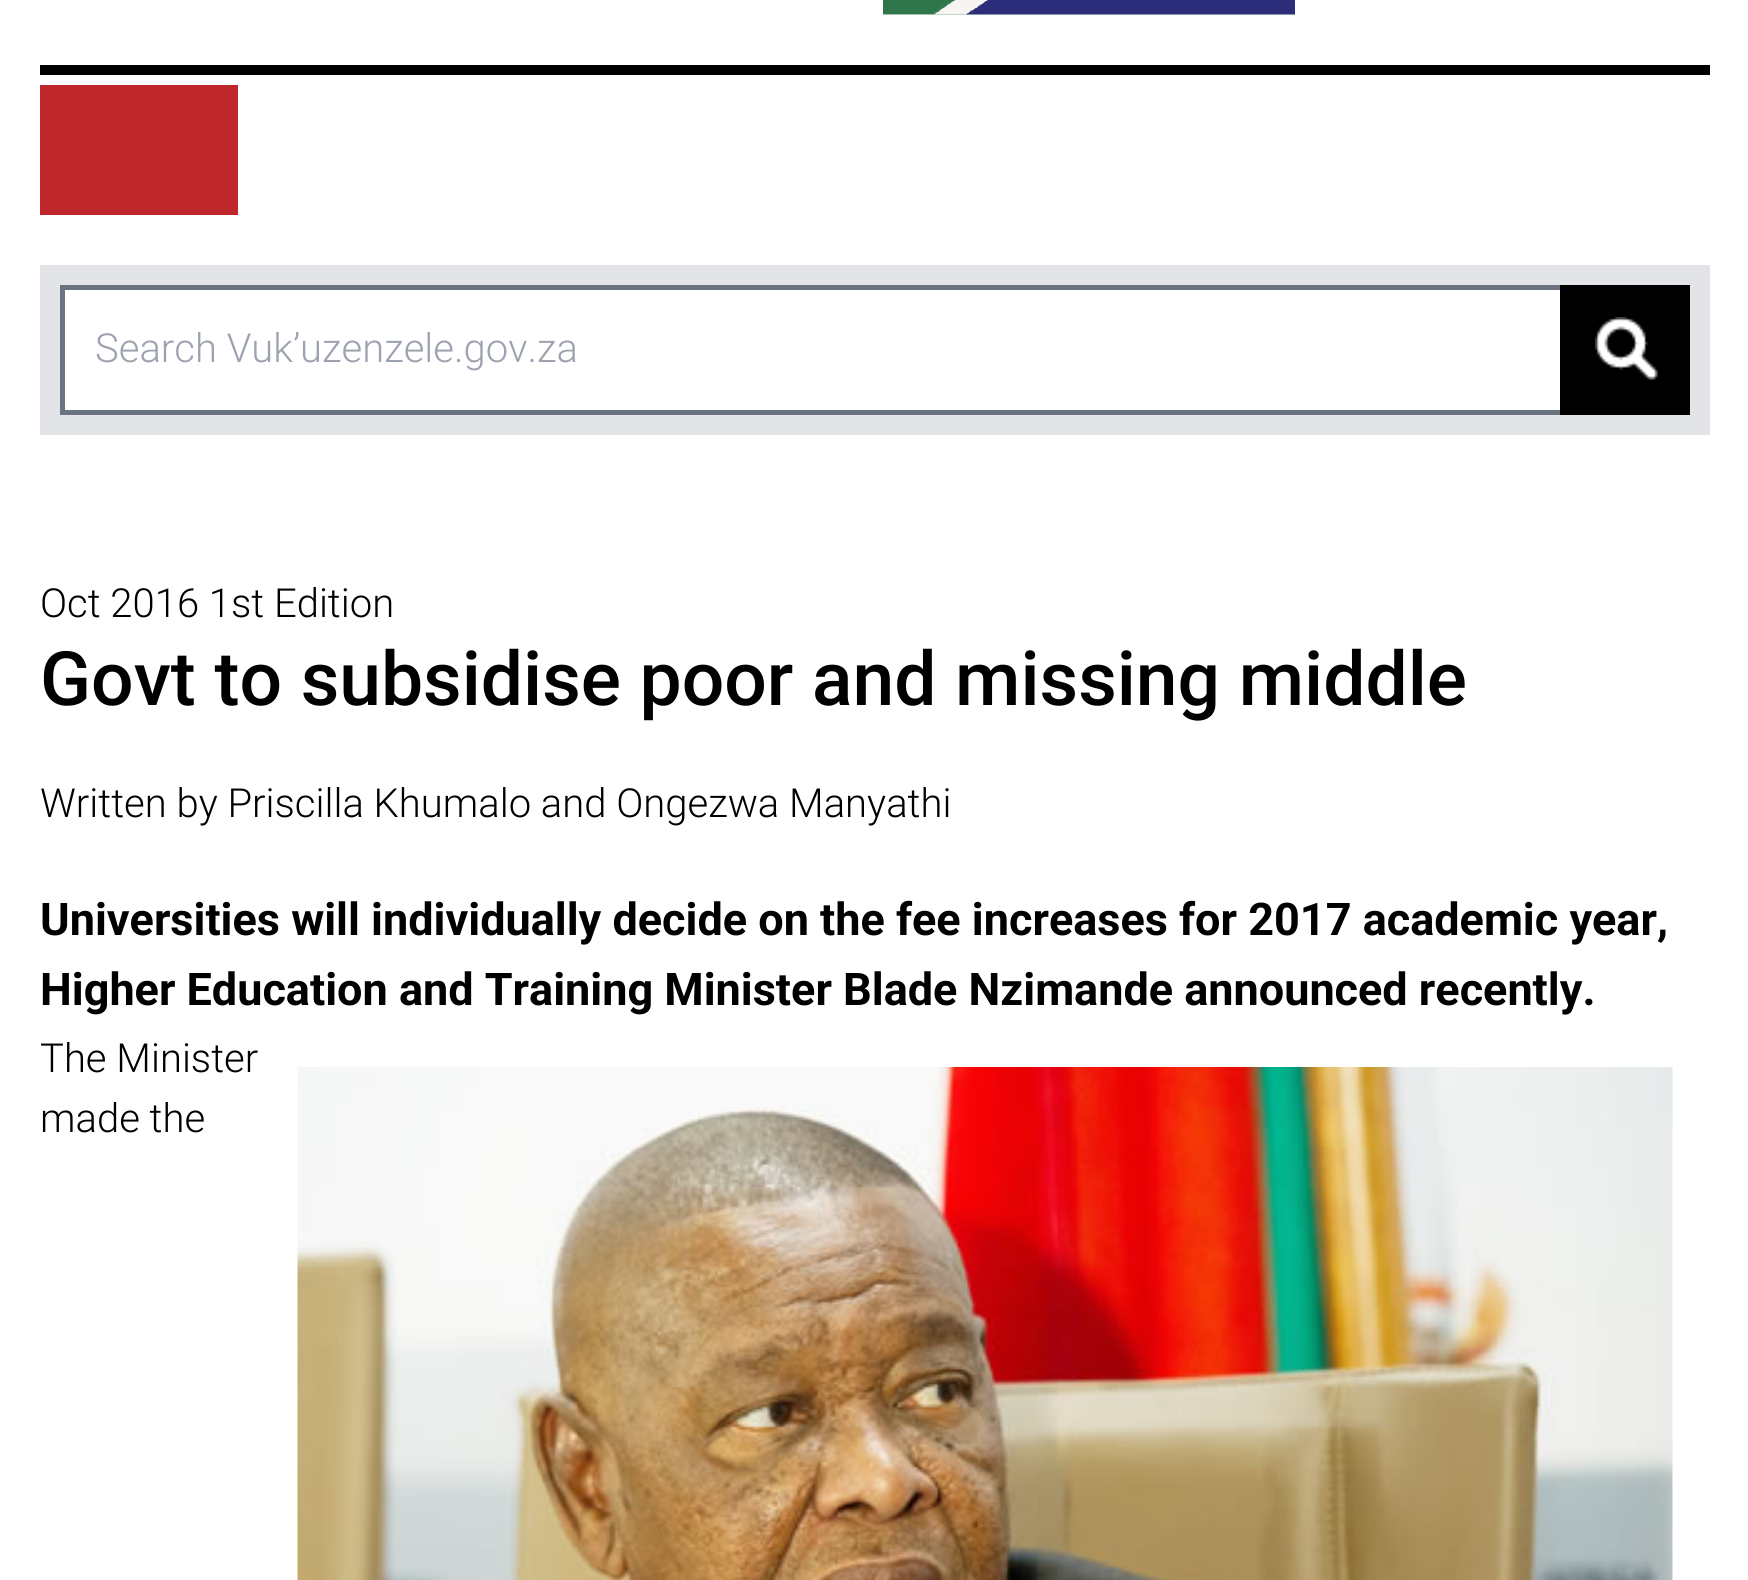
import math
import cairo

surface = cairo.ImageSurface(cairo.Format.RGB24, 1748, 1580)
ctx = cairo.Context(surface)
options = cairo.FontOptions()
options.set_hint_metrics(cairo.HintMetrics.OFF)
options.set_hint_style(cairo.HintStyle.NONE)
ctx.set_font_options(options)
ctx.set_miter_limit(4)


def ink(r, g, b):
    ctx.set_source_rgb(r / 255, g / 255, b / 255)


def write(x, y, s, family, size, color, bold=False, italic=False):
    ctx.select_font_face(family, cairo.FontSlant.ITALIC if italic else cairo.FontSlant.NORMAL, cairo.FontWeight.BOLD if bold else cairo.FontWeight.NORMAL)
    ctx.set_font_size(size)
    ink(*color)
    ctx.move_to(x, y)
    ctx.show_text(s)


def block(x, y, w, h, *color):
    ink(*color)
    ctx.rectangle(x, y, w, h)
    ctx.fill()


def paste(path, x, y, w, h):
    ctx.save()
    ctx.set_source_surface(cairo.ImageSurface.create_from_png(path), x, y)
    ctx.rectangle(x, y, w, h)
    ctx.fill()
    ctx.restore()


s1 = dict(family="Roboto Light", size=40, color=(156, 163, 175))
s2 = dict(family="Roboto Light", size=40, color=(0, 0, 0))
s3 = dict(family="Roboto Medium", size=75, color=(0, 0, 0))
s4 = dict(family="Roboto", size=45, color=(0, 0, 0), bold=True)

ink(255, 255, 255)
ctx.paint()
paste("pic1.png", 883, 0, 412, 15)
block(40, 65, 1670, 10, 0, 0, 0)
block(40, 85, 198, 130, 192, 39, 45)
block(40, 265, 1670, 170, 227, 228, 232)
block(65, 290, 1495, 120, 255, 255, 255)
ctx.rectangle(62.5, 287.5, 1625, 125)
ink(107, 114, 128)
ctx.set_line_width(5)
ctx.stroke()
write(95, 362, "Search Vuk’uzenzele.gov.za", **s1)
block(1560, 285, 130, 130, 0, 0, 0)
paste("pic2.png", 1595, 317, 63, 63)
write(40, 617, "Oct 2016 1st Edition", **s2)
write(40, 705, "Govt to subsidise poor and missing middle", **s3)
write(40, 817, "Written by Priscilla Khumalo and Ongezwa Manyathi", **s2)
write(40, 935, "Universities will individually decide on the fee increases for 2017 academic year,", **s4)
write(40, 1005, "Higher Education and Training Minister Blade Nzimande announced recently.", **s4)
write(40, 1072, "The Minister", **s2)
write(40, 1132, "made the", **s2)
paste("pic3.png", 297, 1067, 1376, 513)
surface.write_to_png("screenshot.png")
